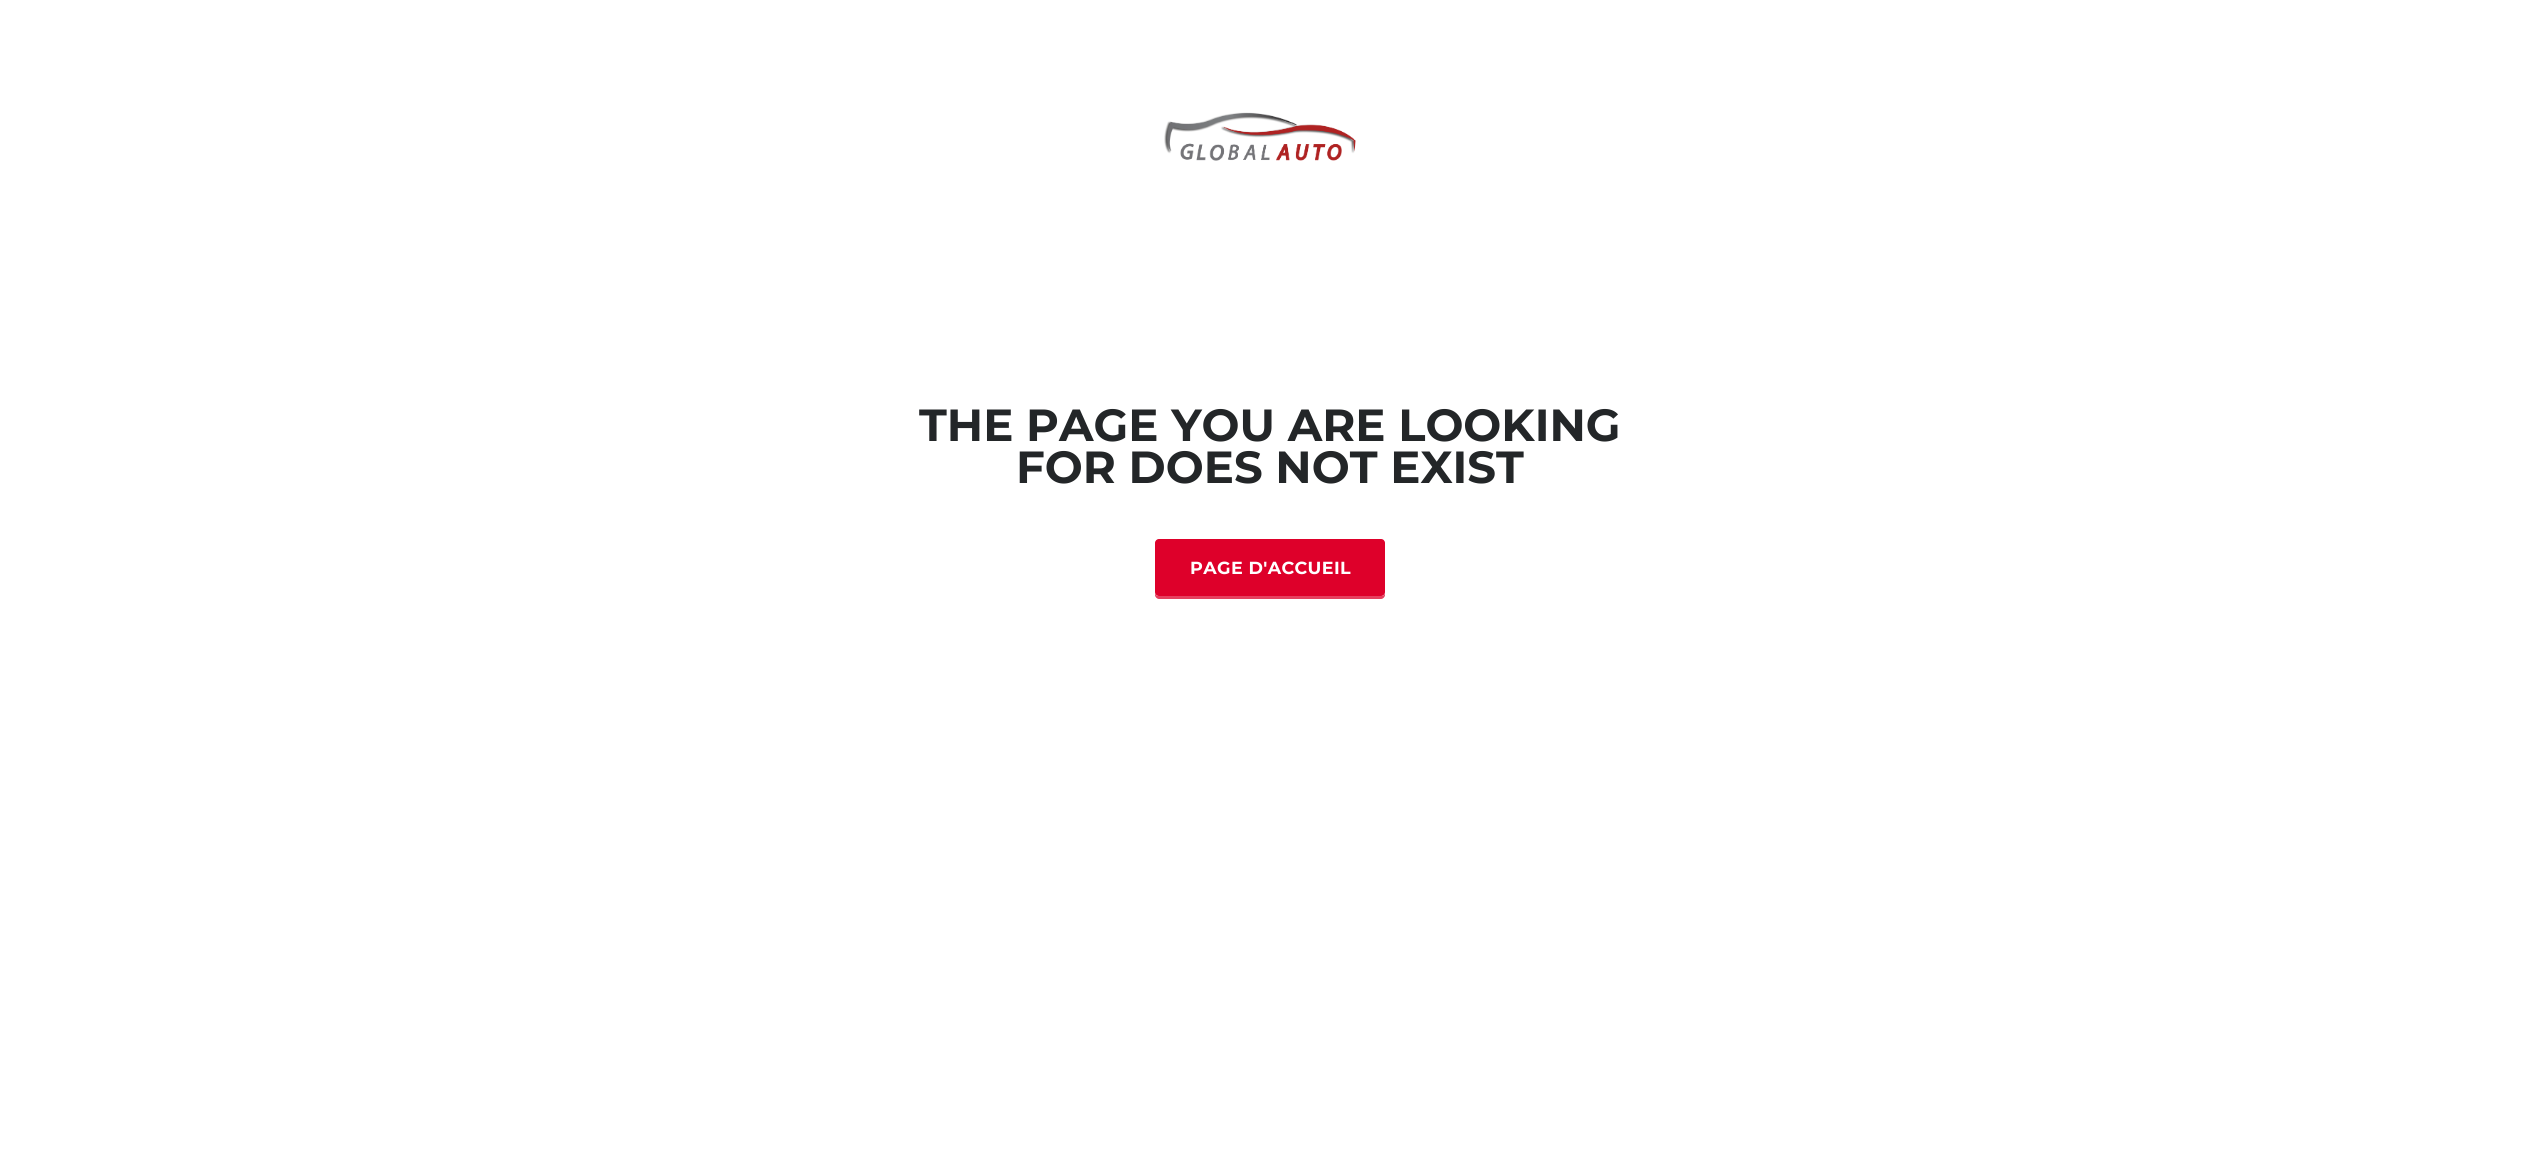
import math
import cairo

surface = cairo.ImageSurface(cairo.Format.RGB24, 2521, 1157)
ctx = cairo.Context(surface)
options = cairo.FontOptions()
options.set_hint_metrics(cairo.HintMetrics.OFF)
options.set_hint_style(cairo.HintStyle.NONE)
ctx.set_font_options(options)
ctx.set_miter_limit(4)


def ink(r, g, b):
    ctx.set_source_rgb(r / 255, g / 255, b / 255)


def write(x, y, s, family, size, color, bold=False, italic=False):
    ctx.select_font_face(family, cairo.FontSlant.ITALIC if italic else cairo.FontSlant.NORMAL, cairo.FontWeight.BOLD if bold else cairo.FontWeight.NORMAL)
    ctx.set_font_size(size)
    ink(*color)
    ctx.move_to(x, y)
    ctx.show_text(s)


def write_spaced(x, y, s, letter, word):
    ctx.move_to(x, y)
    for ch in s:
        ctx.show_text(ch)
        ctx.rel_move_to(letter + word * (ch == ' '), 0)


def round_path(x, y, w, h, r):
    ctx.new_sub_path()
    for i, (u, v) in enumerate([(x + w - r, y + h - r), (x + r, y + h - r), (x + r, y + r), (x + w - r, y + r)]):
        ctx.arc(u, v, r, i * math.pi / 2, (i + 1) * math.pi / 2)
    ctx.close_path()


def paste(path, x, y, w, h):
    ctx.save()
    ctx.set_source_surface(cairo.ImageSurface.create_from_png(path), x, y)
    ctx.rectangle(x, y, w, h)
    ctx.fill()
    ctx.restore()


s1 = dict(family="Montserrat", size=45, color=(35, 38, 40), bold=True)

ink(255, 255, 255)
ctx.paint()
paste("pic1.png", 1164, 112, 192, 49)
write(919, 441, "THE PAGE YOU ARE LOOKING", **s1)
write(1016, 483, "FOR DOES NOT EXIST", **s1)
ink(230, 64, 95)
ctx.new_path()
ctx.move_to(1155, 592)
ctx.line_to(1155, 595)
ctx.curve_to(1155, 597, 1157, 599, 1159, 599)
ctx.line_to(1381, 599)
ctx.curve_to(1383, 599, 1385, 597, 1385, 595)
ctx.line_to(1385, 592)
ctx.curve_to(1385, 595, 1383, 596, 1381, 596)
ctx.line_to(1159, 596)
ctx.curve_to(1157, 596, 1155, 595, 1155, 592)
ctx.close_path()
ctx.fill()
ink(222, 0, 42)
round_path(1155, 539, 230, 57, 4)
ctx.fill()
ctx.set_font_size(17.5)
ink(255, 255, 255)
write_spaced(1190, 574, "PAGE D'ACCUEIL", 0.4, 0)
surface.write_to_png("screenshot.png")
